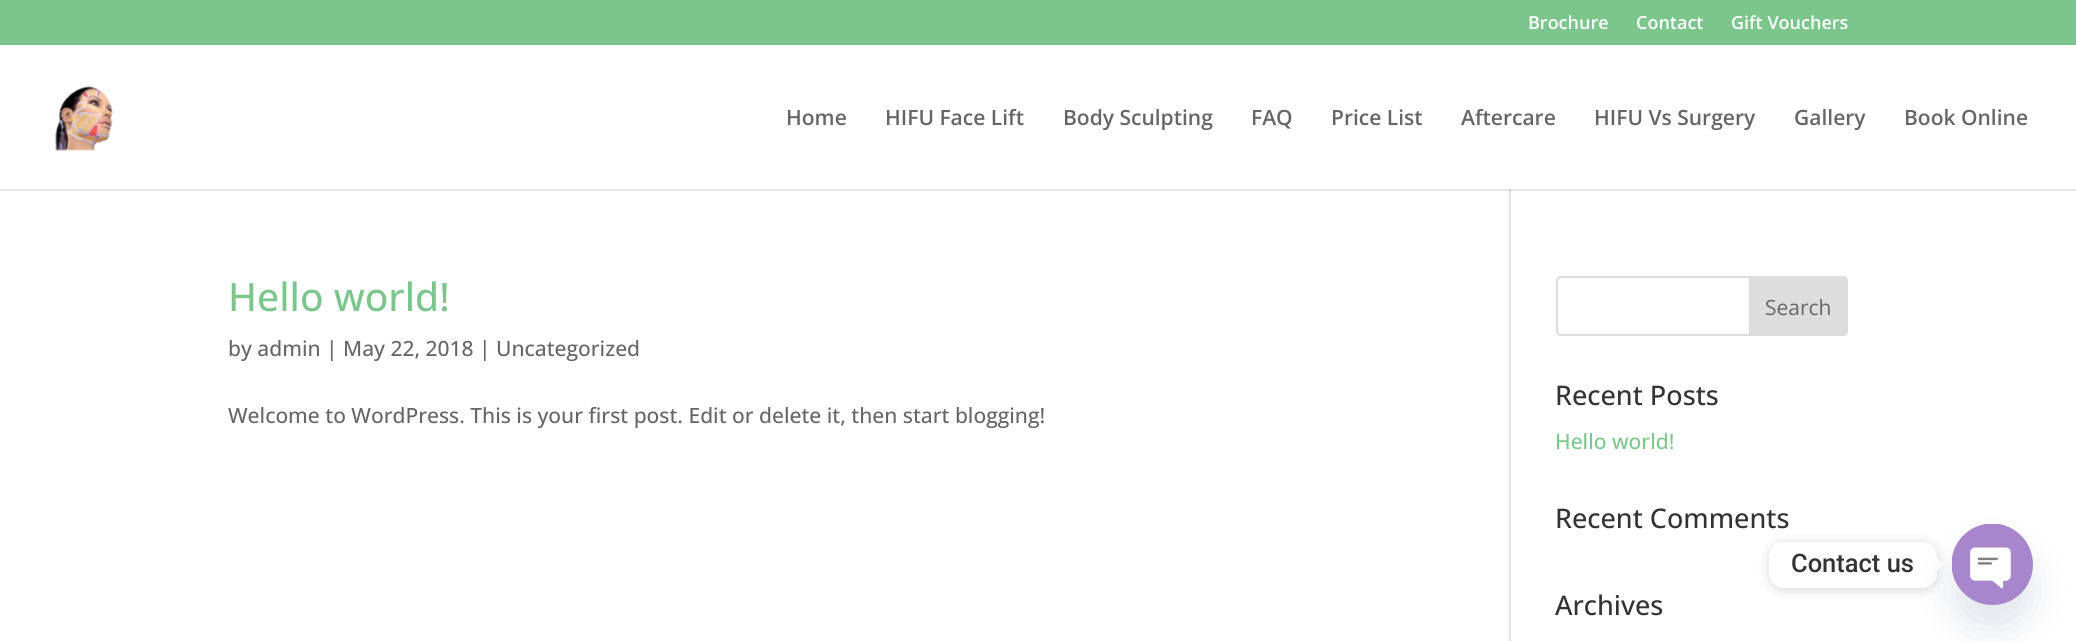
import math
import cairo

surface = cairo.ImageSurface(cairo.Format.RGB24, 2076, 641)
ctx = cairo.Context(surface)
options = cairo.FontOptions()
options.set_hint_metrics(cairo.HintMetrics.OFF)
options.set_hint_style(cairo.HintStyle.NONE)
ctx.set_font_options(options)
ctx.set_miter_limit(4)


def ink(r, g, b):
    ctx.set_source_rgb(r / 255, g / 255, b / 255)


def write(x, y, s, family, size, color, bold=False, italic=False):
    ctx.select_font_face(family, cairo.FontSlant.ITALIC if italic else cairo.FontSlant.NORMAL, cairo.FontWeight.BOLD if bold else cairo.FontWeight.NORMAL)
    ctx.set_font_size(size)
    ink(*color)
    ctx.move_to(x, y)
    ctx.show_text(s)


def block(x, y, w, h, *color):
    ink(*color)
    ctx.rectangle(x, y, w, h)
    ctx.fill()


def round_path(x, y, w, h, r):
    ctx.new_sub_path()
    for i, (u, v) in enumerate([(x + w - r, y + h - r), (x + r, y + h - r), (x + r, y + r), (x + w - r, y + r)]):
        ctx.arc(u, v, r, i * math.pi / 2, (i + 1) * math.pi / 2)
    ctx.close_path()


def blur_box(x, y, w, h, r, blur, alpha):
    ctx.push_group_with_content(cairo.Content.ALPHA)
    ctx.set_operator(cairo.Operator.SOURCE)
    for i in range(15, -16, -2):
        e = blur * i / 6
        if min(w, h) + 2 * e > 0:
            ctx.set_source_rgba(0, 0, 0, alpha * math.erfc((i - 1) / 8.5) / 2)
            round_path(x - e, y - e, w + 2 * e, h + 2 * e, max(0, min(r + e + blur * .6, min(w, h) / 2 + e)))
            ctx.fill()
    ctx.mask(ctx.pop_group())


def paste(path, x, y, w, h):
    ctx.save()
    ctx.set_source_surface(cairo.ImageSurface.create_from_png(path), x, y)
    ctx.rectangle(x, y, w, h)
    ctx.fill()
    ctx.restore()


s1 = dict(family="Open Sans SemiBold", size=18, color=(255, 255, 255))
s2 = dict(family="Open Sans SemiBold", size=21, color=(102, 102, 102))
s3 = dict(family="Open Sans Medium", size=39, color=(124, 198, 141))
s4 = dict(family="Open Sans Medium", size=21, color=(102, 102, 102))
s5 = dict(family="Open Sans", size=21, color=(102, 102, 102))
s6 = dict(family="Open Sans Medium", size=27, color=(51, 51, 51))
s7 = dict(family="Open Sans Medium", size=21, color=(124, 198, 141))
s8 = dict(family="Roboto Medium", size=25.5, color=(51, 51, 51))

ink(255, 255, 255)
ctx.paint()
block(0, 189, 2076, 2, 230, 230, 230)
block(0, 0, 2076, 45, 124, 198, 141)
write(1528, 29, "Brochure", **s1)
write(1636, 29, "Contact", **s1)
write(1731, 29, "Gift Vouchers", **s1)
paste("pic1.png", 55, 86, 58, 65)
write(786, 125, "Home", **s2)
write(885, 125, "HIFU Face Lift", **s2)
write(1063, 125, "Body Sculpting", **s2)
write(1251, 125, "FAQ", **s2)
write(1331, 125, "Price List", **s2)
write(1461, 125, "Aftercare", **s2)
write(1594, 125, "HIFU Vs Surgery", **s2)
write(1794, 125, "Gallery", **s2)
write(1904, 125, "Book Online", **s2)
block(1509, 189, 2, 452, 226, 226, 226)
block(1509, 189, 2, 2, 203, 203, 203)
write(228, 311, "Hello world!", **s3)
write(228, 356, "by admin | May 22, 2018 | Uncategorized", **s4)
write(228, 423, "Welcome to WordPress. This is your first post. Edit or delete it, then start blogging!", **s4)
round_path(1557, 277, 290, 58, 4)
ink(221, 221, 221)
ctx.stroke()
ctx.new_path()
ctx.move_to(1750, 277)
ctx.line_to(1843, 277)
ctx.curve_to(1845, 277, 1847, 279, 1847, 281)
ctx.line_to(1847, 331)
ctx.curve_to(1847, 333, 1845, 335, 1843, 335)
ctx.line_to(1750, 335)
ctx.close_path()
ctx.fill_preserve()
ctx.stroke()
write(1765, 315, "Search", **s5)
write(1555, 405, "Recent Posts", **s6)
write(1555, 449, "Hello world!", **s7)
write(1555, 528, "Recent Comments", **s6)
write(1555, 615, "Archives", **s6)
ink(0, 0, 0)
blur_box(1769, 543, 168, 47, 15, 6, 0.15)
ink(255, 255, 255)
round_path(1769, 542, 168, 46, 15)
ctx.fill()
write(1791, 572, "Contact us", **s8)
ink(255, 255, 255)
ctx.new_path()
ctx.move_to(1936.5, 572)
ctx.line_to(1936.5, 557)
ctx.line_to(1944, 565)
ctx.close_path()
ctx.fill()
ink(73, 104, 126)
blur_box(1952, 548, 81, 81, 40.5, 18, 0.16)
ink(168, 134, 205)
ctx.arc(1992.5, 564.5, 40.5, 0, 2 * math.pi)
ctx.fill()
paste("pic2.png", 1952, 524, 79, 79)
surface.write_to_png("screenshot.png")
